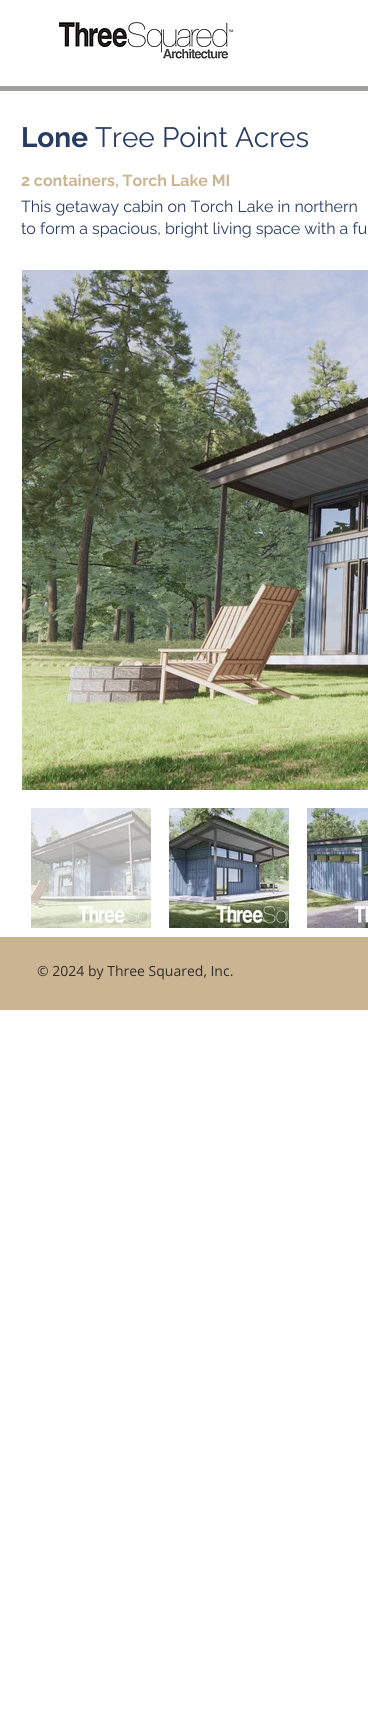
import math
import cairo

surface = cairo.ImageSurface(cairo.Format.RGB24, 368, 1712)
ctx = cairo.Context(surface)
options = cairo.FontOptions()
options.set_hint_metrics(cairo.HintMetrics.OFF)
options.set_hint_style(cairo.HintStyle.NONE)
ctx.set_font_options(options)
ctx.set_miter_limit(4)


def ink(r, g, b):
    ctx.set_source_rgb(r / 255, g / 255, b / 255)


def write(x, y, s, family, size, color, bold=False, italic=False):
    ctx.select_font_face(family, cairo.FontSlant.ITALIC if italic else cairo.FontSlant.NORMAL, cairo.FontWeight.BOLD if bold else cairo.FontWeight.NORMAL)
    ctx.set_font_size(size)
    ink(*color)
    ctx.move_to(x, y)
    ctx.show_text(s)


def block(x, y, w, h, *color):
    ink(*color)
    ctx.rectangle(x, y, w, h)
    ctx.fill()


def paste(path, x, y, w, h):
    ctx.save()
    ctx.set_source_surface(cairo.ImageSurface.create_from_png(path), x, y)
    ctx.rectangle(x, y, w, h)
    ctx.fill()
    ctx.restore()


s1 = dict(family="Raleway", size=28, color=(40, 59, 98), bold=True)
s2 = dict(family="Raleway", size=28, color=(40, 59, 98))
s3 = dict(family="Raleway", size=16, color=(203, 180, 146), bold=True)
s4 = dict(family="Raleway", size=16, color=(40, 59, 98))
s5 = dict(family="Open Sans", size=14, color=(47, 46, 46))

ink(255, 255, 255)
ctx.paint()
paste("pic1.png", 59, 22, 175, 37)
block(0, 86, 368, 5, 160, 160, 159)
write(21, 147, "Lone", **s1)
write(95, 147, "Tree Point Acres", **s2)
write(21, 186, "2 containers, Torch Lake MI", **s3)
write(21, 212, "This getaway cabin on Torch Lake in northern", **s4)
write(21, 234, "to form a spacious, bright living space with a fu", **s4)
paste("pic2.png", 22, 270, 346, 520)
paste("pic3.png", 31, 808, 120, 120)
paste("pic4.png", 169, 808, 120, 120)
paste("pic5.png", 307, 808, 61, 120)
block(0, 937, 368, 73, 203, 180, 146)
write(37, 976, "© 2024 by Three Squared, Inc.", **s5)
surface.write_to_png("screenshot.png")
